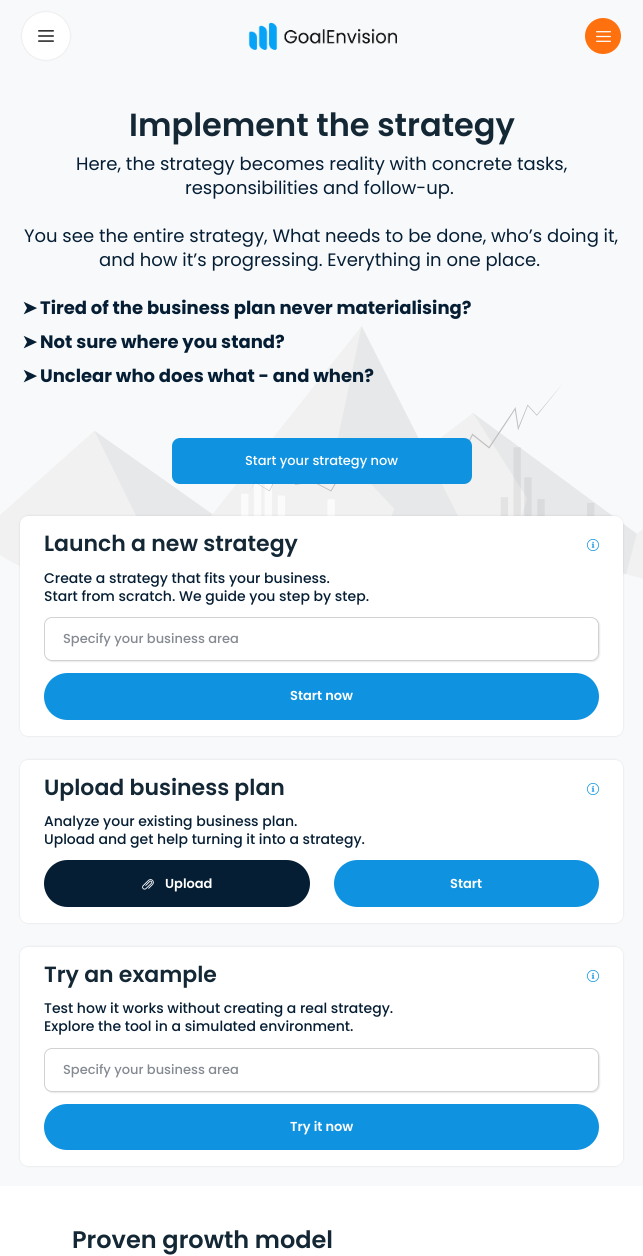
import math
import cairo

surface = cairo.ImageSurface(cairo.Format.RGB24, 643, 1256)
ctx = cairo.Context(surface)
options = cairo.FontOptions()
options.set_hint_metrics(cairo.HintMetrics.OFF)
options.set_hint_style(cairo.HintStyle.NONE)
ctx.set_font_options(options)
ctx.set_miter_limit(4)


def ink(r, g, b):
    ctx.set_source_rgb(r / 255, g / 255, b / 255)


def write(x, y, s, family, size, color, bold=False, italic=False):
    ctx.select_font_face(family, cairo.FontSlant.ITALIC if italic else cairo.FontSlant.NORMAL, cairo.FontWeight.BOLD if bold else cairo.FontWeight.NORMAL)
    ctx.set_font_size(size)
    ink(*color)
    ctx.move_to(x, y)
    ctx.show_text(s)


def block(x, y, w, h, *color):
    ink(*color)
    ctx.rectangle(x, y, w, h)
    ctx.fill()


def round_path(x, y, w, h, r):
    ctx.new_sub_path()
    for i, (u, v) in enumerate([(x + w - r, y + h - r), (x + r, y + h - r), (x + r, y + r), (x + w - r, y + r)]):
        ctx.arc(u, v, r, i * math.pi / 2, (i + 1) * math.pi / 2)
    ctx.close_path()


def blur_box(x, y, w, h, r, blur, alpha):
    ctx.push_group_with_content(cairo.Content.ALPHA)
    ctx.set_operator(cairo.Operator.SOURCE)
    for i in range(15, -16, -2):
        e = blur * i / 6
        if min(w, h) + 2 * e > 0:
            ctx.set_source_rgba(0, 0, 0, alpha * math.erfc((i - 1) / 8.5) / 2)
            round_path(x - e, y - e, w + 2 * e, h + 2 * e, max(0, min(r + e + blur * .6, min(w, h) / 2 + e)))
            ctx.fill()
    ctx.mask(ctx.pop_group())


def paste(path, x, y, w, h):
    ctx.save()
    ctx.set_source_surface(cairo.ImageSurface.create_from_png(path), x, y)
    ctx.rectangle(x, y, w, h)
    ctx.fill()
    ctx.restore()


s1 = dict(family="Poppins SemiBold", size=32, color=(20, 39, 53))
s2 = dict(family="Poppins", size=18, color=(6, 30, 52))
s3 = dict(family="DejaVu Sans", size=18, color=(6, 30, 52), bold=True)
s4 = dict(family="Poppins", size=18, color=(6, 30, 52), bold=True)
s5 = dict(family="Poppins Medium", size=13, color=(255, 255, 255))
s6 = dict(family="Poppins SemiBold", size=22, color=(20, 39, 53))
s7 = dict(family="Poppins Medium", size=14, color=(6, 30, 52))
s8 = dict(family="Poppins Medium", size=13, color=(133, 138, 146))
s9 = dict(family="Poppins SemiBold", size=13, color=(255, 255, 255))
s10 = dict(family="Poppins SemiBold", size=24, color=(20, 39, 53))

ink(247, 249, 251)
ctx.paint()
ink(0, 0, 0)
blur_box(22, 12, 48, 48, 24, 1, 0.12)
ink(255, 255, 255)
ctx.arc(46, 36, 24, 0, 2 * math.pi)
ctx.fill()
paste("pic1.png", 38, 30, 16, 12)
paste("pic2.png", 248, 22, 149, 28)
ink(255, 113, 15)
ctx.arc(603, 36, 18, 0, 2 * math.pi)
ctx.fill()
paste("pic3.png", 596, 31, 15, 11)
write(129, 136, "Implement the strategy", **s1)
write(76, 170, "Here, the strategy becomes reality with concrete tasks,", **s2)
write(185, 194, "responsibilities and follow-up.", **s2)
write(24, 242, "You see the entire strategy, What needs to be done, who’s doing it,", **s2)
write(99, 266, "and how it’s progressing. Everything in one place.", **s2)
write(22, 314, "➤", **s3)
write(40, 314, "Tired of the business plan never materialising?", **s4)
paste("pic4.png", 0, 326, 643, 253)
write(22, 348, "➤", **s3)
write(40, 348, "Not sure where you stand?", **s4)
write(22, 382, "➤", **s3)
write(40, 382, "Unclear who does what - and when?", **s4)
ink(15, 147, 225)
round_path(172, 438, 300, 46, 8)
ctx.fill()
write(245, 465, "Start your strategy now", **s5)
ink(0, 0, 0)
blur_box(20, 516, 603, 220, 8, 1, 0.12)
ink(255, 255, 255)
round_path(20, 516, 603, 220, 8)
ctx.fill()
write(44, 551, "Launch a new strategy", **s6)
paste("pic5.png", 587, 539, 12, 12)
write(44, 583, "Create a strategy that fits your business.", **s7)
write(44, 601, "Start from scratch. We guide you step by step.", **s7)
ink(0, 0, 0)
blur_box(45, 618, 555, 44, 8, 0.5, 0.08)
ink(255, 255, 255)
round_path(44.5, 617.5, 554, 43, 7.5)
ctx.fill_preserve()
ink(210, 210, 209)
ctx.set_line_width(1)
ctx.stroke()
write(63, 643, "Specify your business area", **s8)
ink(15, 147, 225)
round_path(44, 673, 555, 47, 23.5)
ctx.fill()
write(290, 700, "Start now", **s9)
ink(0, 0, 0)
blur_box(20, 760, 603, 163, 8, 1, 0.12)
ink(255, 255, 255)
round_path(20, 760, 603, 163, 8)
ctx.fill()
write(44, 795, "Upload business plan", **s6)
paste("pic5.png", 587, 783, 12, 12)
write(44, 826, "Analyze your existing business plan.", **s7)
write(44, 844, "Upload and get help turning it into a strategy.", **s7)
round_path(44, 860, 266, 47, 23.5)
ctx.fill()
paste("pic6.png", 142, 879, 12, 11)
write(165, 888, "Upload", **s9)
ink(15, 147, 225)
round_path(334, 860, 265, 47, 23.5)
ctx.fill()
write(450, 888, "Start", **s9)
ink(0, 0, 0)
blur_box(20, 947, 603, 219, 8, 1, 0.12)
ink(255, 255, 255)
round_path(20, 947, 603, 219, 8)
ctx.fill()
write(44, 982, "Try an example", **s6)
paste("pic5.png", 587, 970, 12, 12)
write(44, 1013, "Test how it works without creating a real strategy.", **s7)
write(44, 1031, "Explore the tool in a simulated environment.", **s7)
ink(0, 0, 0)
blur_box(45, 1049, 555, 44, 8, 0.5, 0.08)
ink(255, 255, 255)
round_path(44.5, 1048.5, 554, 43, 7.5)
ctx.fill_preserve()
ink(210, 210, 209)
ctx.stroke()
write(63, 1074, "Specify your business area", **s8)
ink(15, 147, 225)
round_path(44, 1104, 555, 46, 23)
ctx.fill()
write(290, 1131, "Try it now", **s9)
block(0, 1186, 643, 70, 255, 255, 255)
write(72, 1248, "Proven growth model", **s10)
surface.write_to_png("screenshot.png")
